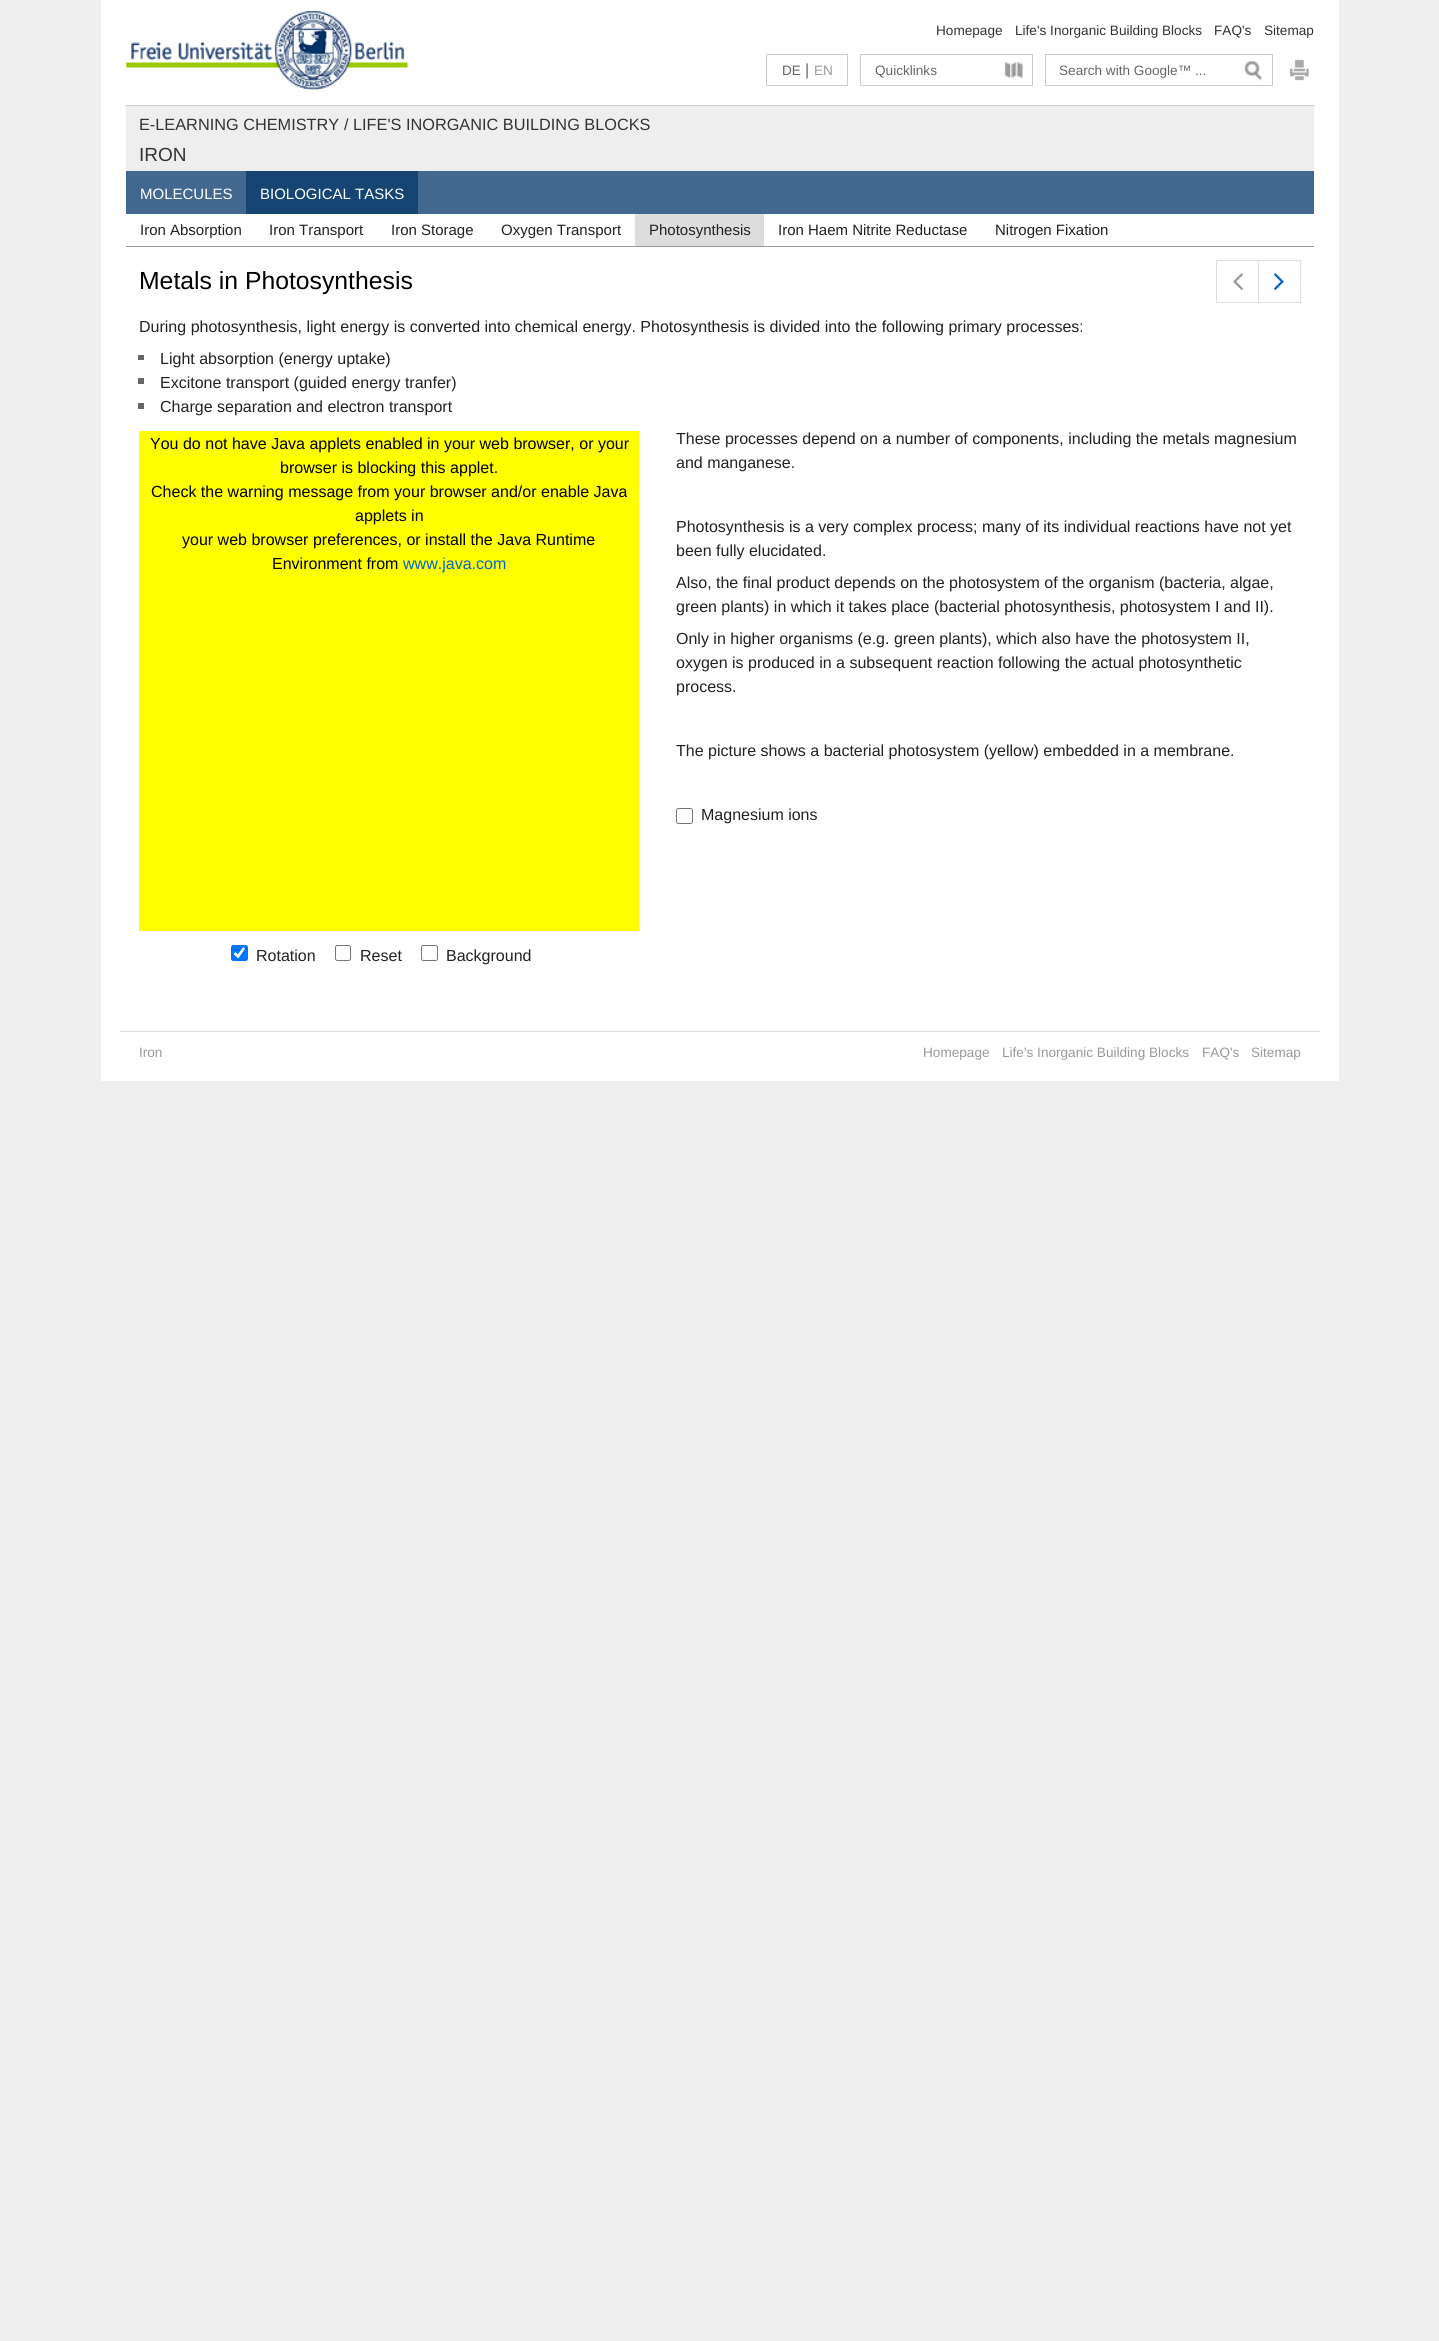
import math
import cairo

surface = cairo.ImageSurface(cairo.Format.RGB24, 1439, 2341)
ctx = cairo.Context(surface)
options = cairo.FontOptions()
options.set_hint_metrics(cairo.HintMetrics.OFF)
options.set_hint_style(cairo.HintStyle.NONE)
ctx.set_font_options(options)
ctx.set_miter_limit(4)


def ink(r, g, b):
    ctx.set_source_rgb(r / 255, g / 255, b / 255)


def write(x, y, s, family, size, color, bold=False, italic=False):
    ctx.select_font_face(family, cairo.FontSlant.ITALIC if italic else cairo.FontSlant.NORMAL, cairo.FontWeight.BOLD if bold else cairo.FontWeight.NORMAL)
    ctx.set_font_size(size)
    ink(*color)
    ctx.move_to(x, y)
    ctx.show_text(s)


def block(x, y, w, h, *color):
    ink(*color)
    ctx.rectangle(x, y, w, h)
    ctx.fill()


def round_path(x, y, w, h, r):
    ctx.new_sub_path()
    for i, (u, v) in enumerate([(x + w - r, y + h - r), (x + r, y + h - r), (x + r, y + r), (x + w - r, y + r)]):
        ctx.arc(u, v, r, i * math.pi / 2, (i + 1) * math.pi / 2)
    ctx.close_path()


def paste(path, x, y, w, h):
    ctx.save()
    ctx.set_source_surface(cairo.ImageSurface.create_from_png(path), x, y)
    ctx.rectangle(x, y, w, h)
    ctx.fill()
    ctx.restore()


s1 = dict(family="Liberation Sans", size=13.6, color=(51, 51, 51))
s2 = dict(family="Liberation Sans", size=13.6, color=(102, 102, 102))
s3 = dict(family="Liberation Sans", size=16, color=(102, 102, 102))
s4 = dict(family="Liberation Sans", size=13.6, color=(153, 153, 153))
s5 = dict(family="Liberation Sans", size=16.3, color=(51, 51, 51))
s6 = dict(family="Liberation Sans", size=16, color=(51, 51, 51))
s7 = dict(family="Liberation Sans", size=19, color=(51, 51, 51))
s8 = dict(family="Liberation Sans", size=15, color=(255, 255, 255))
s9 = dict(family="Liberation Sans", size=15, color=(34, 34, 34))
s10 = dict(family="Liberation Sans", size=24.75, color=(0, 0, 0))
s11 = dict(family="Liberation Sans", size=16.02, color=(34, 34, 34))
s12 = dict(family="Liberation Sans", size=16.02, color=(0, 0, 0))
s13 = dict(family="Liberation Sans", size=16.02, color=(0, 102, 204))
s14 = dict(family="Liberation Sans", size=16, color=(34, 34, 34))

ink(238, 238, 238)
ctx.paint()
block(101, 0, 1238, 1081, 255, 255, 255)
paste("pic1.png", 126, 11, 282, 79)
write(936, 35, "Homepage", **s1)
write(1015, 35, "Life's Inorganic Building Blocks", **s1)
write(1214, 35, "FAQ's", **s1)
write(1264, 35, "Sitemap", **s1)
ctx.rectangle(766.5, 54.5, 81, 31)
ink(204, 204, 204)
ctx.set_line_width(1)
ctx.stroke()
write(782, 75, "DE", **s2)
write(805, 75, "|", **s3)
write(814, 75, "EN", **s4)
ctx.rectangle(860.5, 54.5, 172, 31)
ink(204, 204, 204)
ctx.stroke()
paste("pic2.png", 1004, 61, 19, 18)
write(875, 75, "Quicklinks", **s2)
ctx.rectangle(1045.5, 54.5, 227, 31)
ink(204, 204, 204)
ctx.stroke()
write(1059, 75, "Search with Google™ ...", **s2)
paste("pic3.png", 1244, 61, 18, 20)
paste("pic4.png", 1289, 59, 20, 22)
block(126, 106, 1188, 65, 238, 238, 238)
block(126, 105, 1188, 1, 204, 204, 204)
write(139, 130, "E-LEARNING CHEMISTRY", **s5)
write(344, 130, "/", **s6)
write(353, 130, "LIFE'S INORGANIC BUILDING BLOCKS", **s5)
write(139, 161, "IRON", **s7)
block(126, 246, 1188, 1, 153, 153, 153)
block(126, 171, 1188, 43, 66, 104, 144)
write(140, 199, "MOLECULES", **s8)
block(246, 171, 172, 43, 22, 69, 116)
write(260, 199, "BIOLOGICAL TASKS", **s8)
write(140, 235, "Iron Absorption", **s9)
write(269, 235, "Iron Transport", **s9)
write(391, 235, "Iron Storage", **s9)
write(501, 235, "Oxygen Transport", **s9)
block(635, 214, 129, 32, 221, 221, 221)
write(649, 235, "Photosynthesis", **s9)
write(778, 235, "Iron Haem Nitrite Reductase", **s9)
write(995, 235, "Nitrogen Fixation", **s9)
ctx.rectangle(1216.5, 260.5, 42, 42)
ink(221, 221, 221)
ctx.stroke()
paste("pic5.png", 1233, 273, 10, 17)
ctx.rectangle(1258.5, 260.5, 42, 42)
ctx.stroke()
paste("pic6.png", 1274, 273, 10, 17)
write(139, 289, "Metals in Photosynthesis", **s10)
write(139, 332, "During photosynthesis, light energy is converted into chemical energy. Photosynthesis is divided into the following primary processes:", **s11)
block(138, 355, 6, 5, 102, 102, 102)
write(160, 364, "Light absorption (energy uptake)", **s11)
block(138, 378, 6, 6, 102, 102, 102)
write(160, 388, "Excitone transport (guided energy tranfer)", **s11)
block(138, 403, 6, 6, 102, 102, 102)
write(160, 412, "Charge separation and electron transport", **s11)
block(139, 431, 500, 500, 255, 255, 0)
write(150, 449, "You do not have Java applets enabled in your web browser, or your", **s12)
write(280, 473, "browser is blocking this applet.", **s12)
write(151, 497, "Check the warning message from your browser and/or enable Java", **s12)
write(355, 521, "applets in", **s12)
write(182, 545, "your web browser preferences, or install the Java Runtime", **s12)
write(272, 569, "Environment from", **s12)
write(403, 569, "www.java.com", **s13)
ink(0, 117, 255)
round_path(231, 945, 17, 16, 2.5)
ctx.fill()
ctx.new_path()
ctx.move_to(234.5, 953)
ctx.line_to(238, 956.5)
ctx.line_to(244, 948)
ink(255, 255, 255)
ctx.set_line_width(2.6)
ctx.stroke()
write(256, 961, "Rotation", **s11)
round_path(335.5, 945.5, 15, 15, 2)
ink(118, 118, 118)
ctx.set_line_width(1)
ctx.stroke()
write(360, 961, "Reset", **s11)
round_path(421.5, 945.5, 16, 15, 2)
ink(118, 118, 118)
ctx.stroke()
write(446, 961, "Background", **s11)
write(676, 444, "These processes depend on a number of components, including the metals magnesium", **s14)
write(676, 468, "and manganese.", **s14)
write(676, 532, "Photosynthesis is a very complex process; many of its individual reactions have not yet", **s14)
write(676, 556, "been fully elucidated.", **s14)
write(676, 588, "Also, the final product depends on the photosystem of the organism (bacteria, algae,", **s14)
write(676, 612, "green plants) in which it takes place (bacterial photosynthesis, photosystem I and II).", **s14)
write(676, 644, "Only in higher organisms (e.g. green plants), which also have the photosystem II,", **s14)
write(676, 668, "oxygen is produced in a subsequent reaction following the actual photosynthetic", **s14)
write(676, 692, "process.", **s14)
write(676, 756, "The picture shows a bacterial photosystem (yellow) embedded in a membrane.", **s14)
round_path(676.5, 808.5, 16, 15, 2)
ink(118, 118, 118)
ctx.stroke()
write(701, 820, "Magnesium ions", **s14)
block(120, 1031, 1200, 1, 221, 221, 221)
write(139, 1057, "Iron", **s4)
write(923, 1057, "Homepage", **s4)
write(1002, 1057, "Life's Inorganic Building Blocks", **s4)
write(1202, 1057, "FAQ's", **s4)
write(1251, 1057, "Sitemap", **s4)
surface.write_to_png("screenshot.png")
